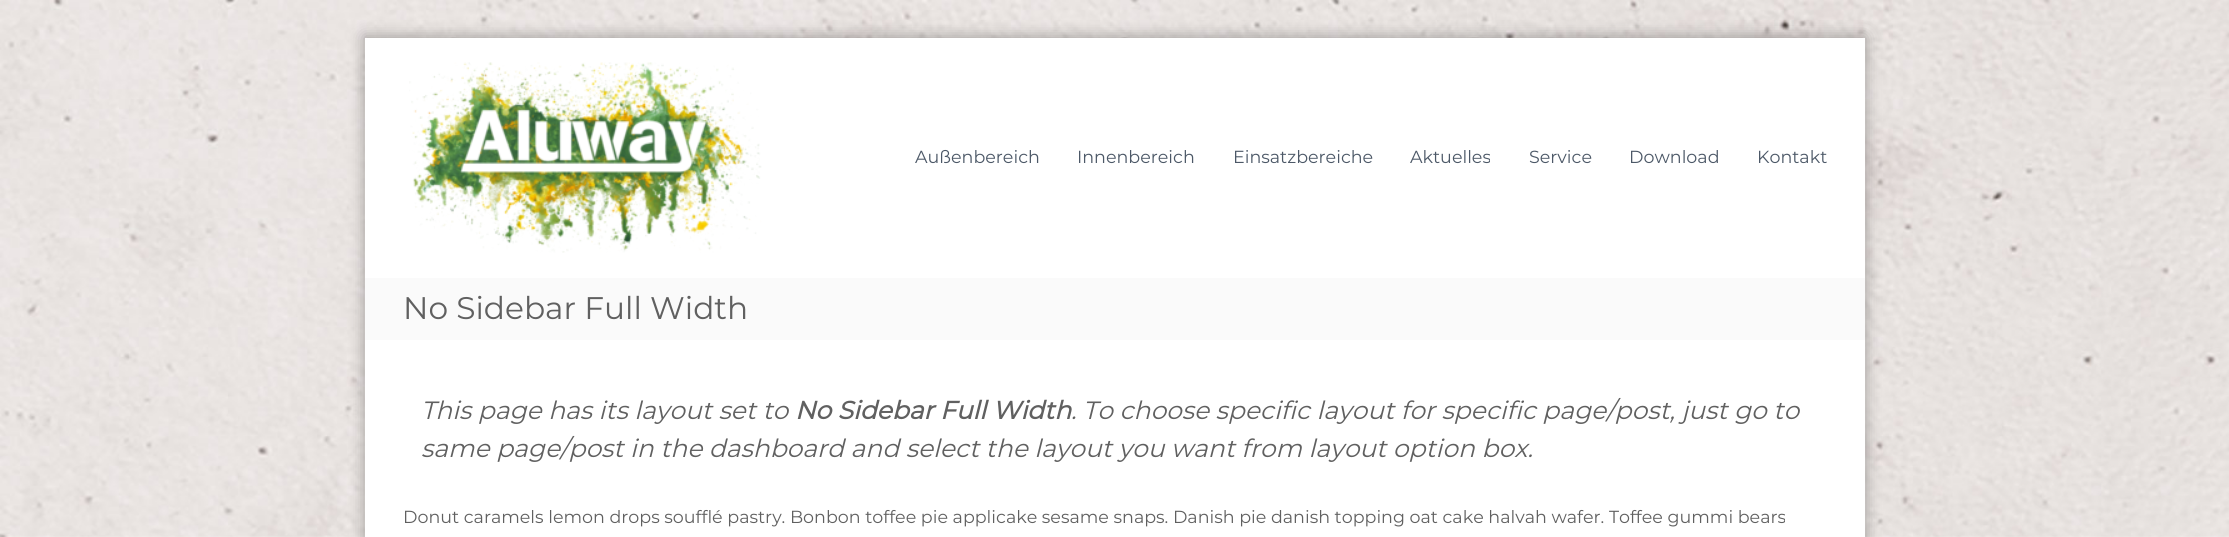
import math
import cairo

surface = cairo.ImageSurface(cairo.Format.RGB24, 2229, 537)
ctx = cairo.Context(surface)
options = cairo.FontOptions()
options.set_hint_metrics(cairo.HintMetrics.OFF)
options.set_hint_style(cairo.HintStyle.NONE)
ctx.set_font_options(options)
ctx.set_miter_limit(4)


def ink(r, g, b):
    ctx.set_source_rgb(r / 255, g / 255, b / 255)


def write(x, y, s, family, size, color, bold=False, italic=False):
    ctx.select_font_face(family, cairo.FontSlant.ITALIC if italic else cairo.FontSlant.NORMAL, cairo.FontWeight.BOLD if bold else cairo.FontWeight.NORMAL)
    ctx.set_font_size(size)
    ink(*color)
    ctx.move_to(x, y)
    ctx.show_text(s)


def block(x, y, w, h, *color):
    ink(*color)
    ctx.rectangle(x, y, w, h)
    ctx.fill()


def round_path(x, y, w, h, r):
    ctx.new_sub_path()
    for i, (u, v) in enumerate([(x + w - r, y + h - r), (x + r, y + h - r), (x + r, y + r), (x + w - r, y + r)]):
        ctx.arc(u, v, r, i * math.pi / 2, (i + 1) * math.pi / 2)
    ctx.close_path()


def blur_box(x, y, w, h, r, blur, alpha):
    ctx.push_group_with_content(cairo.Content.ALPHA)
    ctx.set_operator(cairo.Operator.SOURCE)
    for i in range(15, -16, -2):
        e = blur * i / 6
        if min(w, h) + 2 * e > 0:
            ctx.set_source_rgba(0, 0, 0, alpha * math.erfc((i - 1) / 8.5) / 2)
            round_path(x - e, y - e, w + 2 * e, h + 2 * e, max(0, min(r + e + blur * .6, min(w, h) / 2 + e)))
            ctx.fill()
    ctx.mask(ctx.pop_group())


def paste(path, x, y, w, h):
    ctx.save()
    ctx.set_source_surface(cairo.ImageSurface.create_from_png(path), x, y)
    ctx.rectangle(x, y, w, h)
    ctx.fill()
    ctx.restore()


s1 = dict(family="Montserrat", size=17.5, color=(76, 88, 103))
s2 = dict(family="Montserrat", size=31.25, color=(96, 96, 96))
s3 = dict(family="Montserrat", size=25, color=(96, 96, 96), italic=True)
s4 = dict(family="Montserrat", size=25, color=(96, 96, 96), bold=True, italic=True)
s5 = dict(family="Montserrat", size=17.5, color=(96, 96, 96))

ink(255, 255, 255)
ctx.paint()
paste("pic1.png", 0, 0, 2229, 537)
ink(0, 0, 0)
blur_box(364, 36, 1502, 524, 0, 7.5, 0.3)
block(365, 38, 1500, 499, 255, 255, 255)
paste("pic2.png", 409, 62, 353, 191)
write(915, 163, "Außenbereich", **s1)
write(1077, 163, "Innenbereich", **s1)
write(1233, 163, "Einsatzbereiche", **s1)
write(1410, 163, "Aktuelles", **s1)
write(1529, 163, "Service", **s1)
write(1629, 163, "Download", **s1)
write(1757, 163, "Kontakt", **s1)
block(365, 278, 1500, 62, 250, 250, 250)
write(403, 319, "No Sidebar Full Width", **s2)
write(421, 419, "This page has its layout set to", **s3)
write(795, 419, "No Sidebar Full Width", **s4)
write(1071, 419, ". To choose specific layout for specific page/post, just go to", **s3)
write(421, 457, "same page/post in the dashboard and select the layout you want from layout option box.", **s3)
write(403, 523, "Donut caramels lemon drops soufflé pastry. Bonbon toffee pie applicake sesame snaps. Danish pie danish topping oat cake halvah wafer. Toffee gummi bears", **s5)
surface.write_to_png("screenshot.png")
